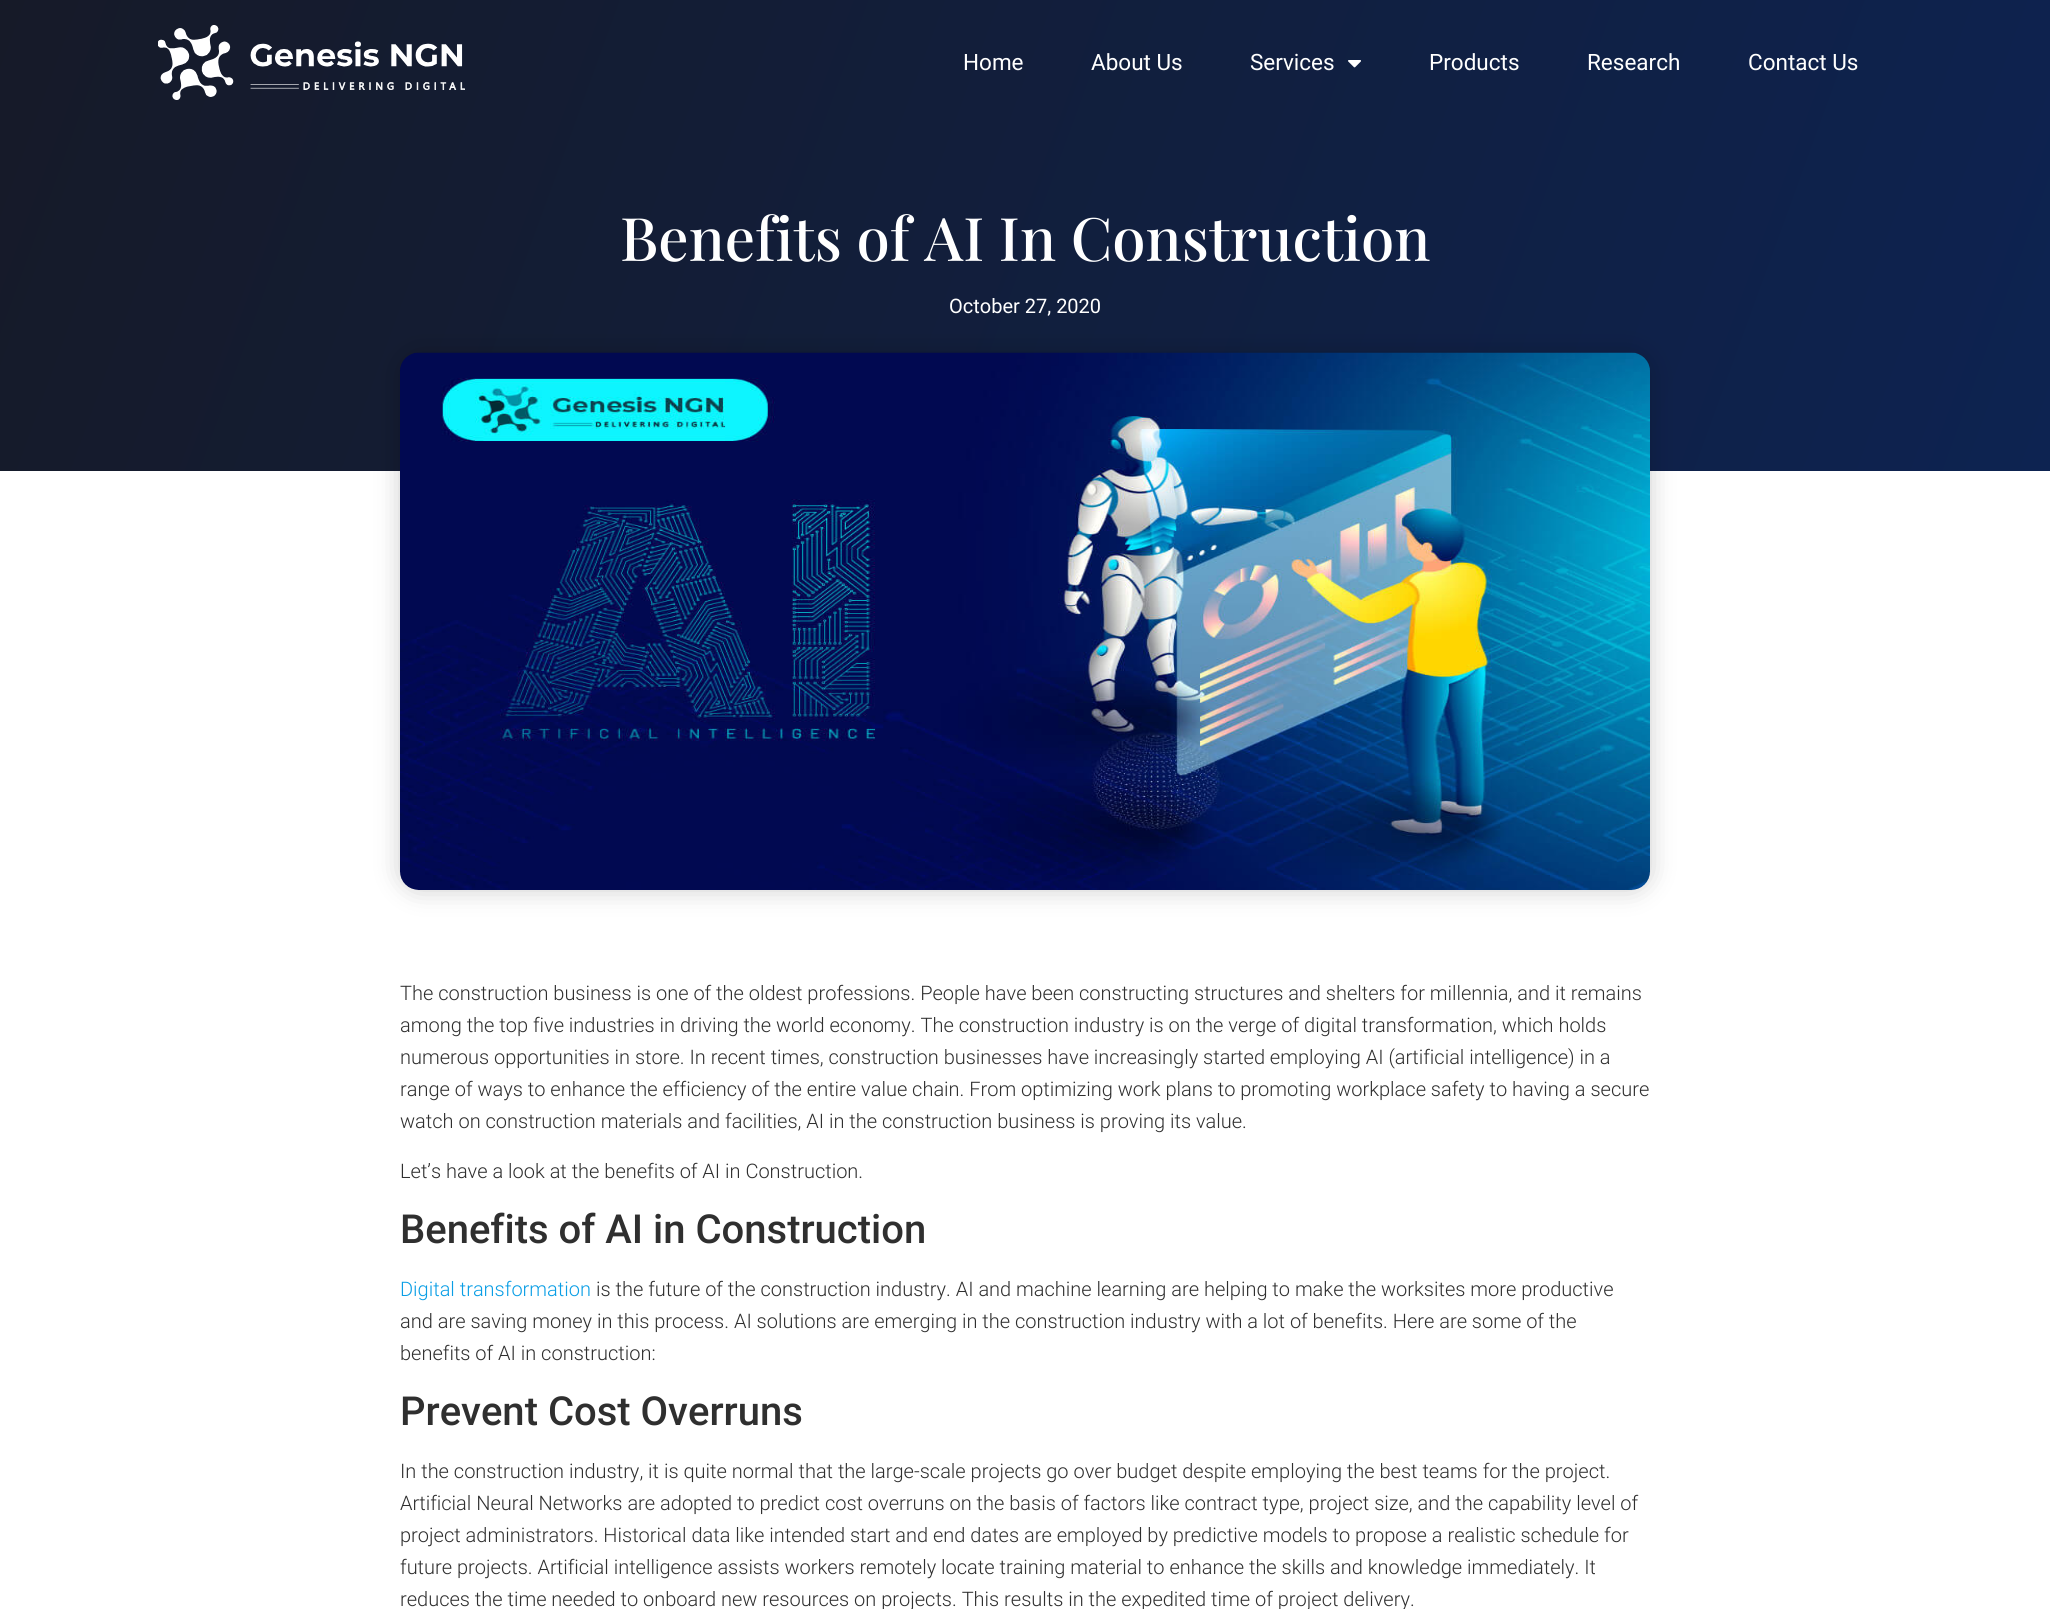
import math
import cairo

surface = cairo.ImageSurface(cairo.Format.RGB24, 2050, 1609)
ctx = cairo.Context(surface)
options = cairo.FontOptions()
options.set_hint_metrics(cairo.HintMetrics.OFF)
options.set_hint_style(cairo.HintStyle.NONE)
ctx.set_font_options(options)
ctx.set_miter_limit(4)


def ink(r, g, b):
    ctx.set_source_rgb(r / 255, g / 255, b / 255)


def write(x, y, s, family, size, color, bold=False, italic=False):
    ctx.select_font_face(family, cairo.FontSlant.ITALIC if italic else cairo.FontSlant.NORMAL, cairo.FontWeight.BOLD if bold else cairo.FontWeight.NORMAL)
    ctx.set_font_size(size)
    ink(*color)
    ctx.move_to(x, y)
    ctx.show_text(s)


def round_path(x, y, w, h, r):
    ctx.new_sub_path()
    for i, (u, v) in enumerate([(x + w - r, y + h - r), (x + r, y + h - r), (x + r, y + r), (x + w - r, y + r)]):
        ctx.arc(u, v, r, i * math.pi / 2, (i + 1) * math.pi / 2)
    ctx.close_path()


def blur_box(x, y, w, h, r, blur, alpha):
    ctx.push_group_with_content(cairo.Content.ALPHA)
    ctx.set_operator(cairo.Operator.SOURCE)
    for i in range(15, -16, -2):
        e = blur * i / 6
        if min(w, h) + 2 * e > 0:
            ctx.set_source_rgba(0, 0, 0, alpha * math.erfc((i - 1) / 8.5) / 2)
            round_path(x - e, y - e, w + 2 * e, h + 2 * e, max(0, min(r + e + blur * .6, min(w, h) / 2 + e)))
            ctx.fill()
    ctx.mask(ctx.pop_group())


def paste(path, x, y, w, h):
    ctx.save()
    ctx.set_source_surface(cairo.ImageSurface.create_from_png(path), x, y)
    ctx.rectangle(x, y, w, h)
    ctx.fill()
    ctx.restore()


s1 = dict(family="Roboto", size=22.5, color=(255, 255, 255))
s2 = dict(family="Playfair Display Medium", size=60, color=(255, 255, 255))
s3 = dict(family="Roboto", size=20, color=(255, 255, 255))
s4 = dict(family="Roboto Light", size=20, color=(47, 47, 47))
s5 = dict(family="Roboto Medium", size=40, color=(47, 47, 47))
s6 = dict(family="Roboto Light", size=20, color=(10, 158, 229))

ink(255, 255, 255)
ctx.paint()
gradient = cairo.LinearGradient(44, -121, 2006, 593)
gradient.add_color_stop_rgba(0, 0.086, 0.102, 0.157, 1)
gradient.add_color_stop_rgba(1, 0.051, 0.137, 0.318, 1)
ctx.set_source(gradient)
ctx.rectangle(0, 0, 2050, 471)
ctx.fill()
paste("pic1.png", 158, 25, 307, 75)
write(963, 70, "Home", **s1)
write(1091, 70, "About Us", **s1)
write(1250, 70, "Services", **s1)
paste("pic2.png", 1348, 60, 13, 8)
write(1429, 70, "Products", **s1)
write(1587, 70, "Research", **s1)
write(1748, 70, "Contact Us", **s1)
write(620, 261, "Benefits of AI In Construction", **s2)
write(949, 313, "October 27, 2020", **s3)
ink(0, 0, 0)
blur_box(400, 353, 1250, 537, 19, 12.5, 0.2)
paste("pic3.png", 400, 352, 1250, 538)
write(400, 1000, "The construction business is one of the oldest professions. People have been constructing structures and shelters for millennia, and it remains", **s4)
write(400, 1032, "among the top five industries in driving the world economy. The construction industry is on the verge of digital transformation, which holds", **s4)
write(400, 1064, "numerous opportunities in store. In recent times, construction businesses have increasingly started employing AI (artificial intelligence) in a", **s4)
write(400, 1096, "range of ways to enhance the efficiency of the entire value chain. From optimizing work plans to promoting workplace safety to having a secure", **s4)
write(400, 1128, "watch on construction materials and facilities, AI in the construction business is proving its value.", **s4)
write(400, 1178, "Let’s have a look at the benefits of AI in Construction.", **s4)
write(400, 1243, "Benefits of AI in Construction", **s5)
write(400, 1296, "Digital transformation", **s6)
write(596, 1296, "is the future of the construction industry. AI and machine learning are helping to make the worksites more productive", **s4)
write(400, 1328, "and are saving money in this process. AI solutions are emerging in the construction industry with a lot of benefits. Here are some of the", **s4)
write(400, 1360, "benefits of AI in construction:", **s4)
write(400, 1425, "Prevent Cost Overruns", **s5)
write(400, 1478, "In the construction industry, it is quite normal that the large-scale projects go over budget despite employing the best teams for the project.", **s4)
write(400, 1510, "Artificial Neural Networks are adopted to predict cost overruns on the basis of factors like contract type, project size, and the capability level of", **s4)
write(400, 1542, "project administrators. Historical data like intended start and end dates are employed by predictive models to propose a realistic schedule for", **s4)
write(400, 1574, "future projects. Artificial intelligence assists workers remotely locate training material to enhance the skills and knowledge immediately. It", **s4)
write(400, 1606, "reduces the time needed to onboard new resources on projects. This results in the expedited time of project delivery.", **s4)
surface.write_to_png("screenshot.png")
